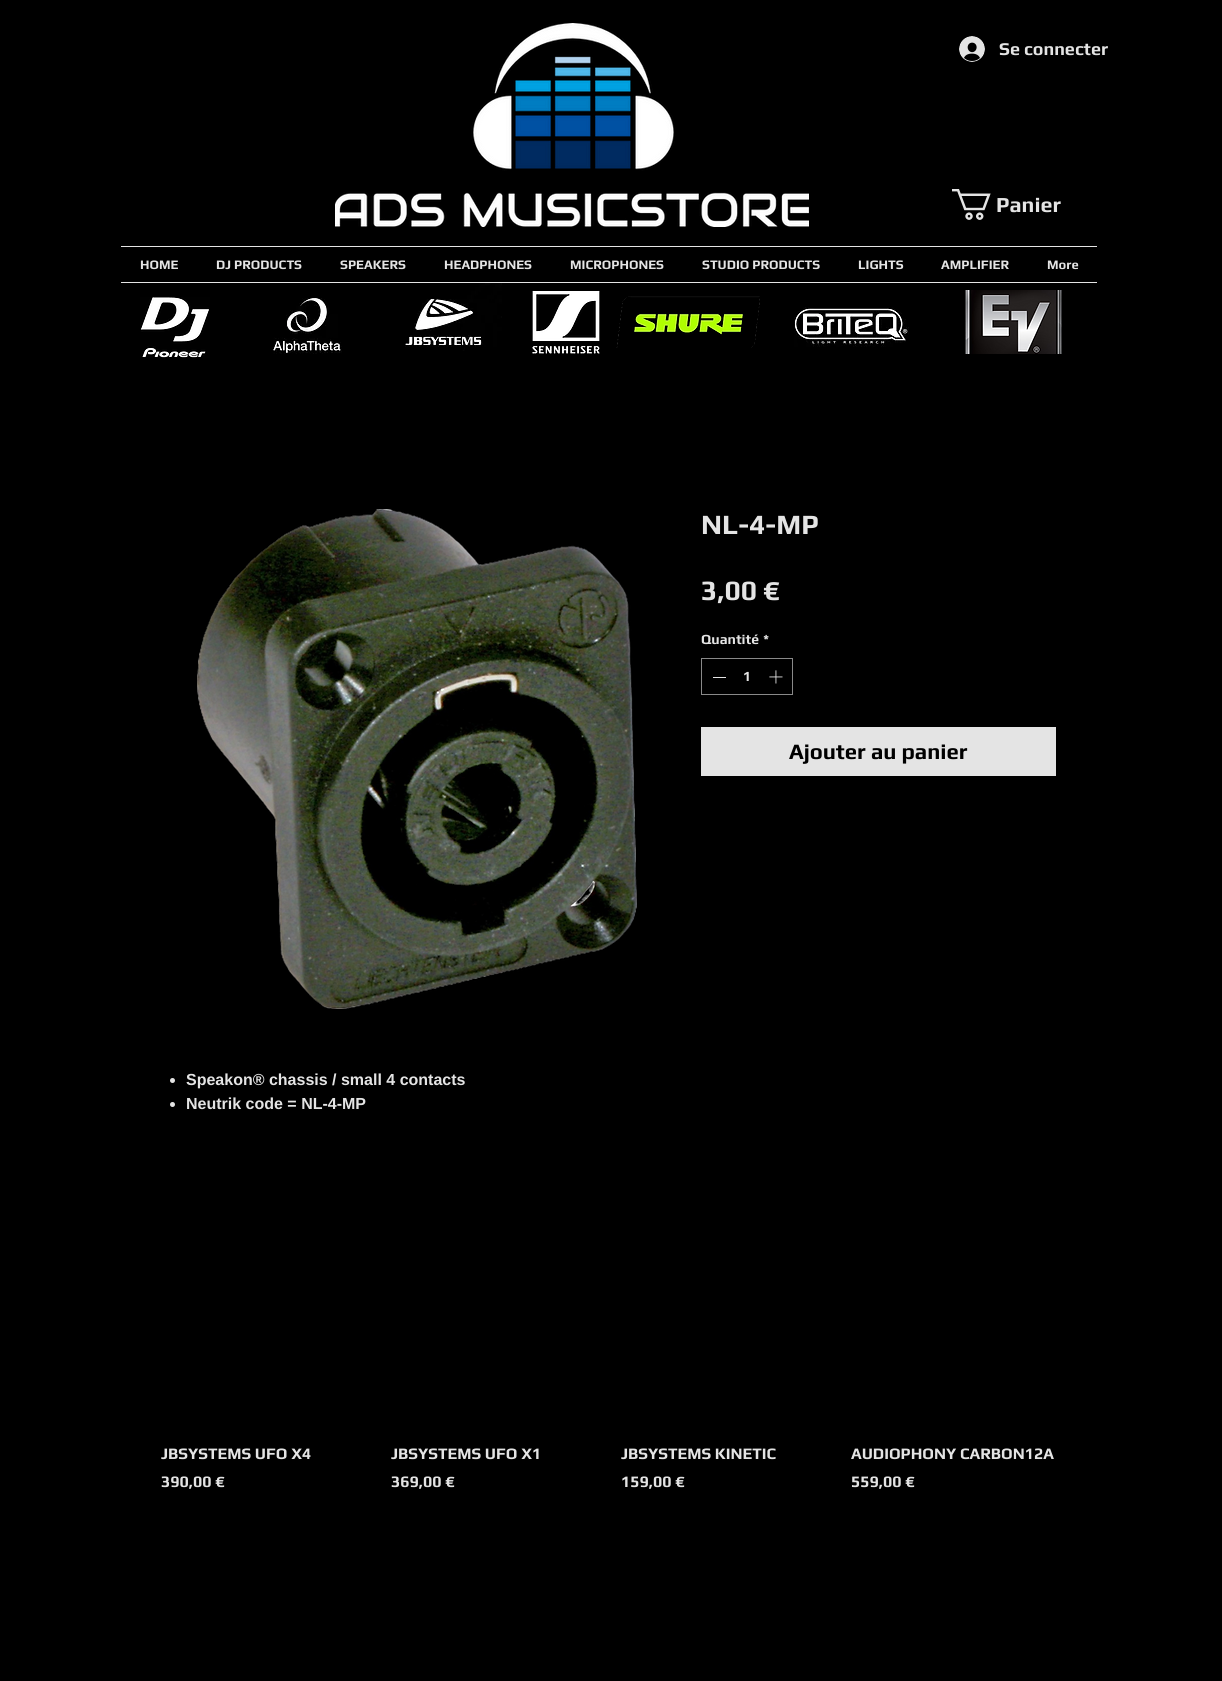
import math
import cairo

surface = cairo.ImageSurface(cairo.Format.RGB24, 1222, 1681)
ctx = cairo.Context(surface)
options = cairo.FontOptions()
options.set_hint_metrics(cairo.HintMetrics.OFF)
options.set_hint_style(cairo.HintStyle.NONE)
ctx.set_font_options(options)
ctx.set_miter_limit(4)


def ink(r, g, b):
    ctx.set_source_rgb(r / 255, g / 255, b / 255)


def write(x, y, s, family, size, color, bold=False, italic=False):
    ctx.select_font_face(family, cairo.FontSlant.ITALIC if italic else cairo.FontSlant.NORMAL, cairo.FontWeight.BOLD if bold else cairo.FontWeight.NORMAL)
    ctx.set_font_size(size)
    ink(*color)
    ctx.move_to(x, y)
    ctx.show_text(s)


def block(x, y, w, h, *color):
    ink(*color)
    ctx.rectangle(x, y, w, h)
    ctx.fill()


def paste(path, x, y, w, h):
    ctx.save()
    ctx.set_source_surface(cairo.ImageSurface.create_from_png(path), x, y)
    ctx.rectangle(x, y, w, h)
    ctx.fill()
    ctx.restore()


s1 = dict(family="Play", size=18, color=(228, 228, 228), bold=True)
s2 = dict(family="Play", size=21.5, color=(228, 228, 228), bold=True)
s3 = dict(family="Play", size=13, color=(228, 228, 228), bold=True)
s4 = dict(family="Play", size=28, color=(228, 228, 228), bold=True)
s5 = dict(family="Play", size=14, color=(228, 228, 228), bold=True)
s6 = dict(family="Play", size=22, color=(0, 0, 0), bold=True)
s7 = dict(family="Liberation Sans", size=16, color=(228, 228, 228), bold=True)
s8 = dict(family="Play", size=16, color=(228, 228, 228), bold=True)

ink(0, 0, 0)
ctx.paint()
paste("pic1.png", 335, 23, 474, 204)
paste("pic2.png", 959, 36, 26, 26)
write(999, 55, "Se connecter", **s1)
paste("pic3.png", 952, 189, 39, 31)
write(996, 212, "Panier", **s2)
block(121, 246, 976, 1, 228, 228, 228)
block(121, 282, 976, 1, 228, 228, 228)
write(140, 269, "HOME", **s3)
write(216, 269, "DJ PRODUCTS", **s3)
write(340, 269, "SPEAKERS", **s3)
write(444, 269, "HEADPHONES", **s3)
write(570, 269, "MICROPHONES", **s3)
write(702, 269, "STUDIO PRODUCTS", **s3)
write(858, 269, "LIGHTS", **s3)
write(941, 269, "AMPLIFIER", **s3)
write(1047, 269, "More", **s3)
paste("pic4.png", 140, 297, 70, 61)
paste("pic5.png", 272, 298, 70, 56)
paste("pic6.png", 405, 283, 97, 68)
paste("pic7.png", 532, 290, 68, 64)
paste("pic8.png", 616, 296, 144, 52)
paste("pic9.png", 794, 307, 115, 40)
paste("pic10.png", 965, 290, 97, 64)
write(701, 534, "NL-4-MP", **s4)
write(701, 600, "3,00 €", **s4)
write(701, 644, "Quantité", **s5)
write(763, 644, "*", **s5)
ctx.rectangle(701.5, 658.5, 91, 36)
ink(137, 137, 137)
ctx.set_line_width(1)
ctx.stroke()
block(713, 677, 13, 1, 228, 228, 228)
write(743, 681, "1", **s5)
paste("pic11.png", 769, 670, 14, 14)
block(701, 727, 355, 49, 228, 228, 228)
write(789, 759, "Ajouter au panier", **s6)
paste("pic12.png", 197, 509, 440, 500)
ink(228, 228, 228)
ctx.arc(172.5, 1080.5, 2.5, 0, 2 * math.pi)
ctx.fill()
write(186, 1085, "Speakon® chassis / small 4 contacts", **s7)
ctx.new_path()
ctx.arc(172.5, 1104.5, 2.5, 0, 2 * math.pi)
ctx.fill()
write(186, 1109, "Neutrik code = NL-4-MP", **s7)
write(161, 1459, "JBSYSTEMS UFO X4", **s8)
write(161, 1487, "390,00 €", **s8)
write(391, 1459, "JBSYSTEMS UFO X1", **s8)
write(391, 1487, "369,00 €", **s8)
write(621, 1459, "JBSYSTEMS KINETIC", **s8)
write(621, 1487, "159,00 €", **s8)
write(851, 1459, "AUDIOPHONY CARBON12A", **s8)
write(851, 1487, "559,00 €", **s8)
surface.write_to_png("screenshot.png")
